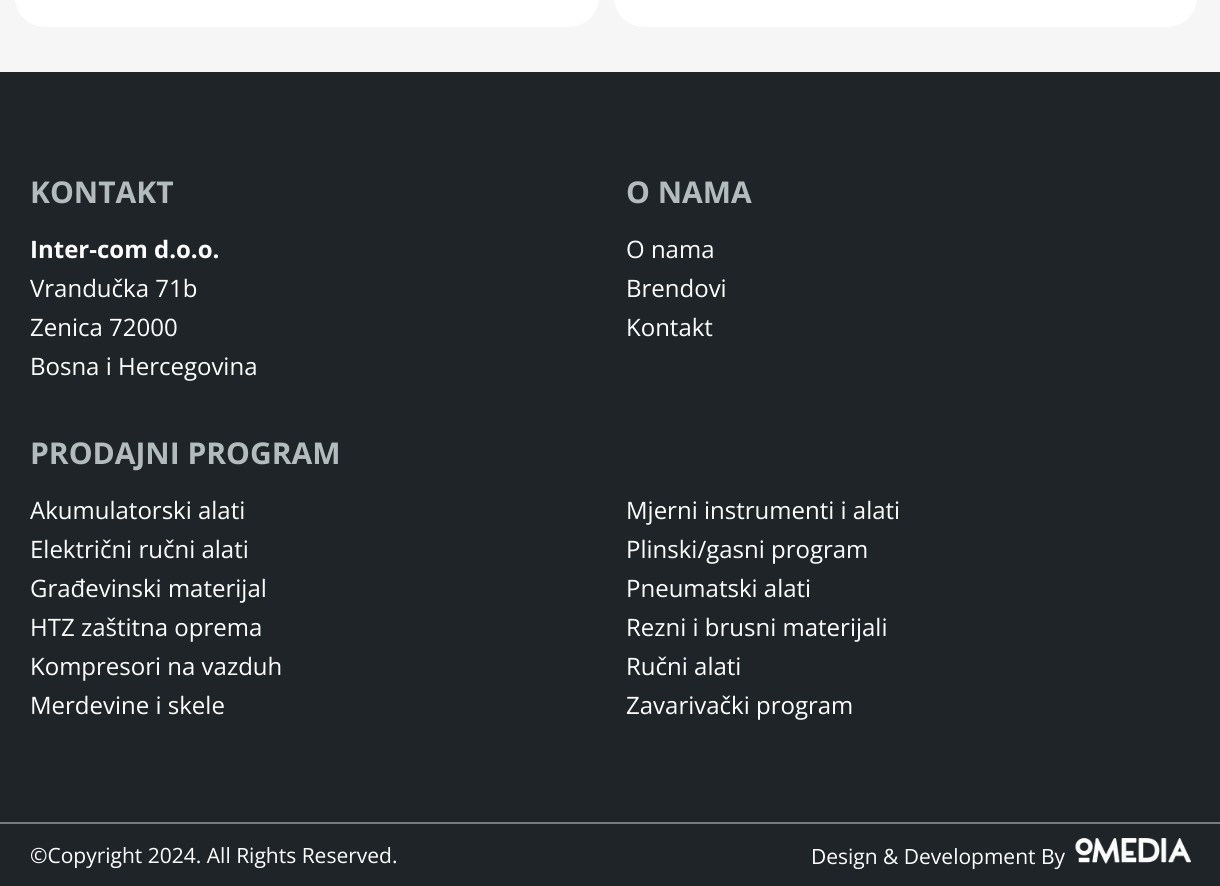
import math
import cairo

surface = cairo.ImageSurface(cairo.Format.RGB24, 1220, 886)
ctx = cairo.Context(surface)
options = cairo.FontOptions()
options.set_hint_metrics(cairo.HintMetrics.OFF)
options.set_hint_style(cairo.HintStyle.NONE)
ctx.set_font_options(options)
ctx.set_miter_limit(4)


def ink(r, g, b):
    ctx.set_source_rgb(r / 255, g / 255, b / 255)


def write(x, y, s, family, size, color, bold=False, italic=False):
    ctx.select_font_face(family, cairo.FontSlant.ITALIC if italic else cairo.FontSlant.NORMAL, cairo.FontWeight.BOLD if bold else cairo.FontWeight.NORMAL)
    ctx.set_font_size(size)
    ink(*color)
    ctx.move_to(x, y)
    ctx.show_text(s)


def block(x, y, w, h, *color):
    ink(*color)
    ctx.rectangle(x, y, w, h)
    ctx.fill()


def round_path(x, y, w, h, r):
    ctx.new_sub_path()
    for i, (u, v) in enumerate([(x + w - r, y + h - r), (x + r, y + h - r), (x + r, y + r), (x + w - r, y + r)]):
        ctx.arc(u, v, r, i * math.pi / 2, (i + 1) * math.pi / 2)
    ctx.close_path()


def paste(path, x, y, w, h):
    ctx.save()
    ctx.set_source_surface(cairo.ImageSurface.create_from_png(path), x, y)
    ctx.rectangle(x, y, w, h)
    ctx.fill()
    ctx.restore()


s1 = dict(family="Open Sans", size=30, color=(179, 188, 189), bold=True)
s2 = dict(family="Open Sans", size=24, color=(255, 255, 255), bold=True)
s3 = dict(family="Open Sans", size=24, color=(255, 255, 255))
s4 = dict(family="Open Sans", size=21, color=(255, 255, 255))

ink(31, 36, 40)
ctx.paint()
block(0, 0, 1220, 72, 246, 246, 246)
ink(255, 255, 255)
round_path(15, -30, 584, 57, 30)
ctx.fill()
round_path(614, -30, 583, 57, 30)
ctx.fill()
block(0, 822, 1220, 2, 122, 122, 122)
write(30, 203, "KONTAKT", **s1)
write(30, 258, "Inter-com d.o.o.", **s2)
write(30, 297, "Vrandučka 71b", **s3)
write(30, 336, "Zenica 72000", **s3)
write(30, 375, "Bosna i Hercegovina", **s3)
write(626, 203, "O NAMA", **s1)
write(626, 258, "O nama", **s3)
write(626, 297, "Brendovi", **s3)
write(626, 336, "Kontakt", **s3)
write(30, 464, "PRODAJNI PROGRAM", **s1)
write(30, 519, "Akumulatorski alati", **s3)
write(30, 558, "Električni ručni alati", **s3)
write(30, 597, "Građevinski materijal", **s3)
write(30, 636, "HTZ zaštitna oprema", **s3)
write(30, 675, "Kompresori na vazduh", **s3)
write(30, 714, "Merdevine i skele", **s3)
write(626, 519, "Mjerni instrumenti i alati", **s3)
write(626, 558, "Plinski/gasni program", **s3)
write(626, 597, "Pneumatski alati", **s3)
write(626, 636, "Rezni i brusni materijali", **s3)
write(626, 675, "Ručni alati", **s3)
write(626, 714, "Zavarivački program", **s3)
write(30, 863, "©Copyright 2024. All Rights Reserved.", **s4)
write(811, 864, "Design & Development By", **s4)
paste("pic1.png", 1075, 838, 116, 26)
surface.write_to_png("screenshot.png")
